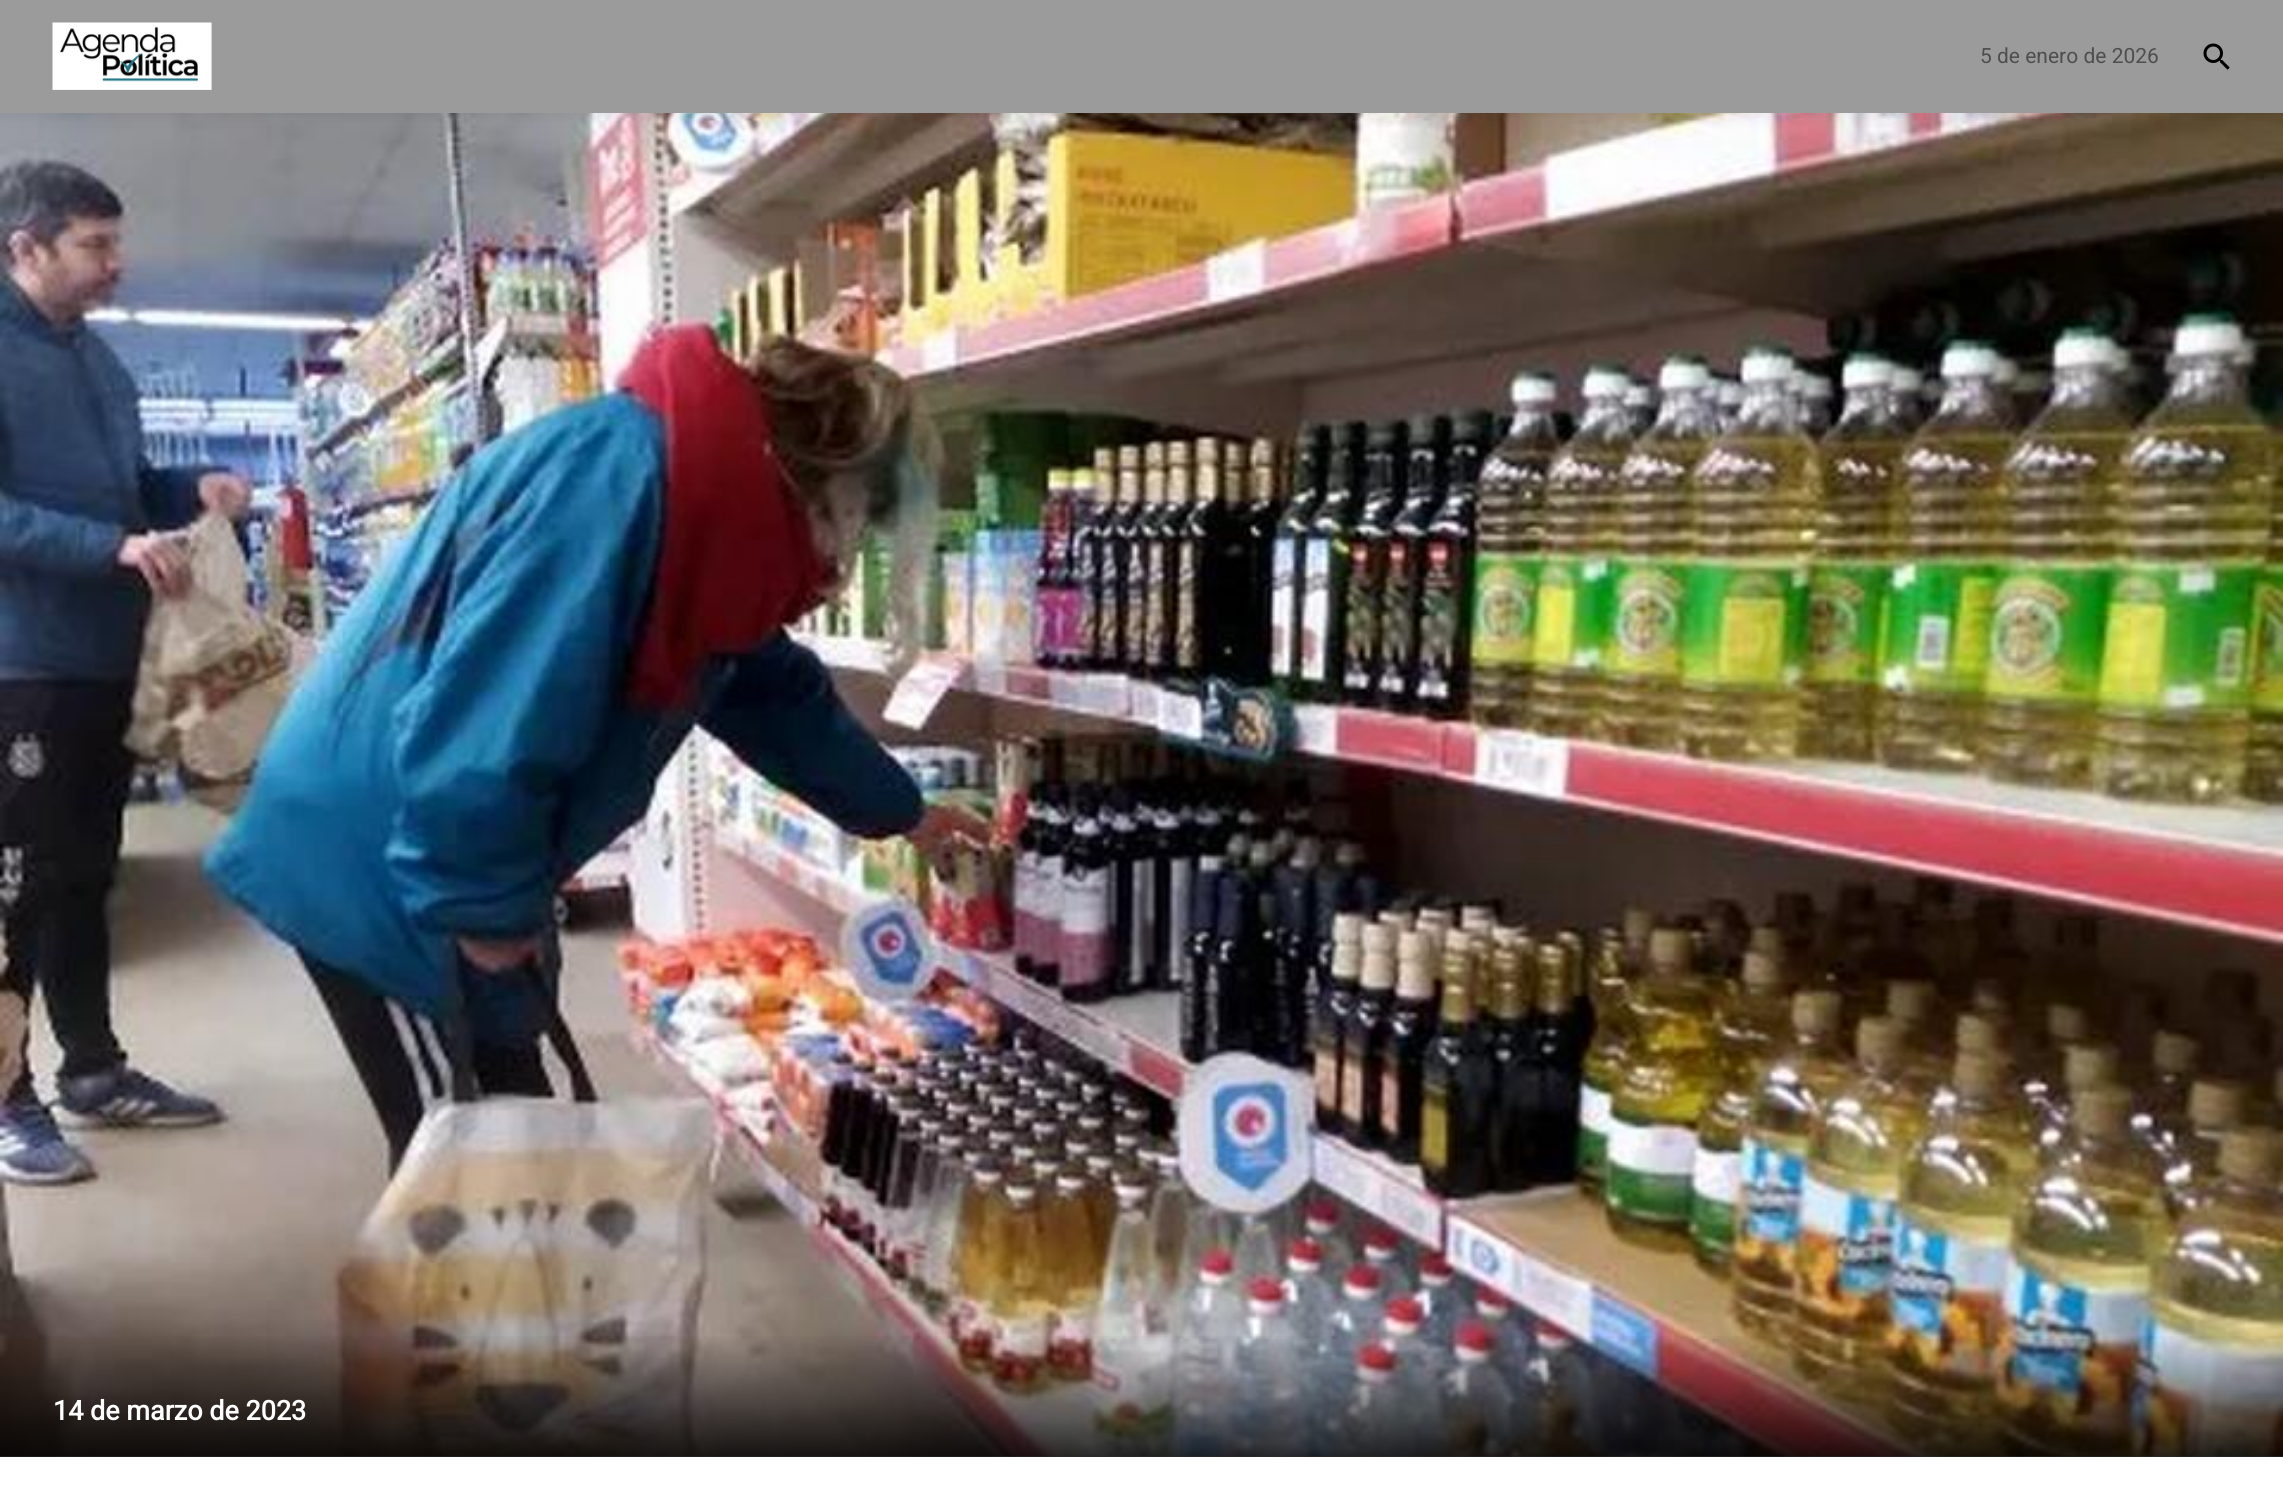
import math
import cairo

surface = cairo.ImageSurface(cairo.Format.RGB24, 2283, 1486)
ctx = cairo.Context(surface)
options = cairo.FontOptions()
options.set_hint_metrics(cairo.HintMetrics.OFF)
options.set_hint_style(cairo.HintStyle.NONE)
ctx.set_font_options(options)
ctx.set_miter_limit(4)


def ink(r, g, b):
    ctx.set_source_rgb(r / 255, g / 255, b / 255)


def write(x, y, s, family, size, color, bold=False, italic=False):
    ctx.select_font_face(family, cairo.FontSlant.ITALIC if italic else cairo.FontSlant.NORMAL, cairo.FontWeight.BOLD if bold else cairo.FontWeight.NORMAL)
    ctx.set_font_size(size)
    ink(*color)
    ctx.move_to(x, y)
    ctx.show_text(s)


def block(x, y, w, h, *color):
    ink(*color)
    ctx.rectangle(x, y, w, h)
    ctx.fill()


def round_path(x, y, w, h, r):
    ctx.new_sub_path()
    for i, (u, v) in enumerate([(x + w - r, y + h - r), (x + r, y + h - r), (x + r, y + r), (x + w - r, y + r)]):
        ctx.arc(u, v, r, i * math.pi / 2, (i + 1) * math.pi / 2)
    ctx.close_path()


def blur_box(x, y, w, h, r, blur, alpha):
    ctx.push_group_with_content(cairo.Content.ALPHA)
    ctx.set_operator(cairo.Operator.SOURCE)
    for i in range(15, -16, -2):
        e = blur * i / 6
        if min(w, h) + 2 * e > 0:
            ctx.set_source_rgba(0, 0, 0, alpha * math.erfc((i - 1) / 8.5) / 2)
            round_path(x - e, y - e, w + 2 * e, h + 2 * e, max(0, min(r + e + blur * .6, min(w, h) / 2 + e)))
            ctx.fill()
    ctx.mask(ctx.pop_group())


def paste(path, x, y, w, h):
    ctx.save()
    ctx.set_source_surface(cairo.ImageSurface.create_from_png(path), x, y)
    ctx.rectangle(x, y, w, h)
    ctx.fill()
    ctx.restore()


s1 = dict(family="Heebo", size=21, color=(78, 78, 78))
s2 = dict(family="Heebo", size=27, color=(255, 255, 255), bold=True)

ink(255, 255, 255)
ctx.paint()
paste("pic3.png", 0, 113, 2283, 1344)
ink(0, 0, 0)
blur_box(0, 2, 2283, 112, 0, 7.5, 0.1)
block(0, 0, 2283, 113, 155, 155, 155)
paste("pic1.png", 52, 22, 160, 68)
write(1980, 63, "5 de enero de 2026", **s1)
paste("pic2.png", 2203, 43, 27, 27)
gradient = cairo.LinearGradient(1142, 1333, 1142, 1484)
gradient.add_color_stop_rgba(0, 0, 0, 0, 0)
gradient.add_color_stop_rgba(1, 0, 0, 0, 1)
ctx.set_source(gradient)
ctx.rectangle(0, 1336, 2283, 121)
ctx.fill()
write(53, 1420, "14 de marzo de 2023", **s2)
surface.write_to_png("screenshot.png")
